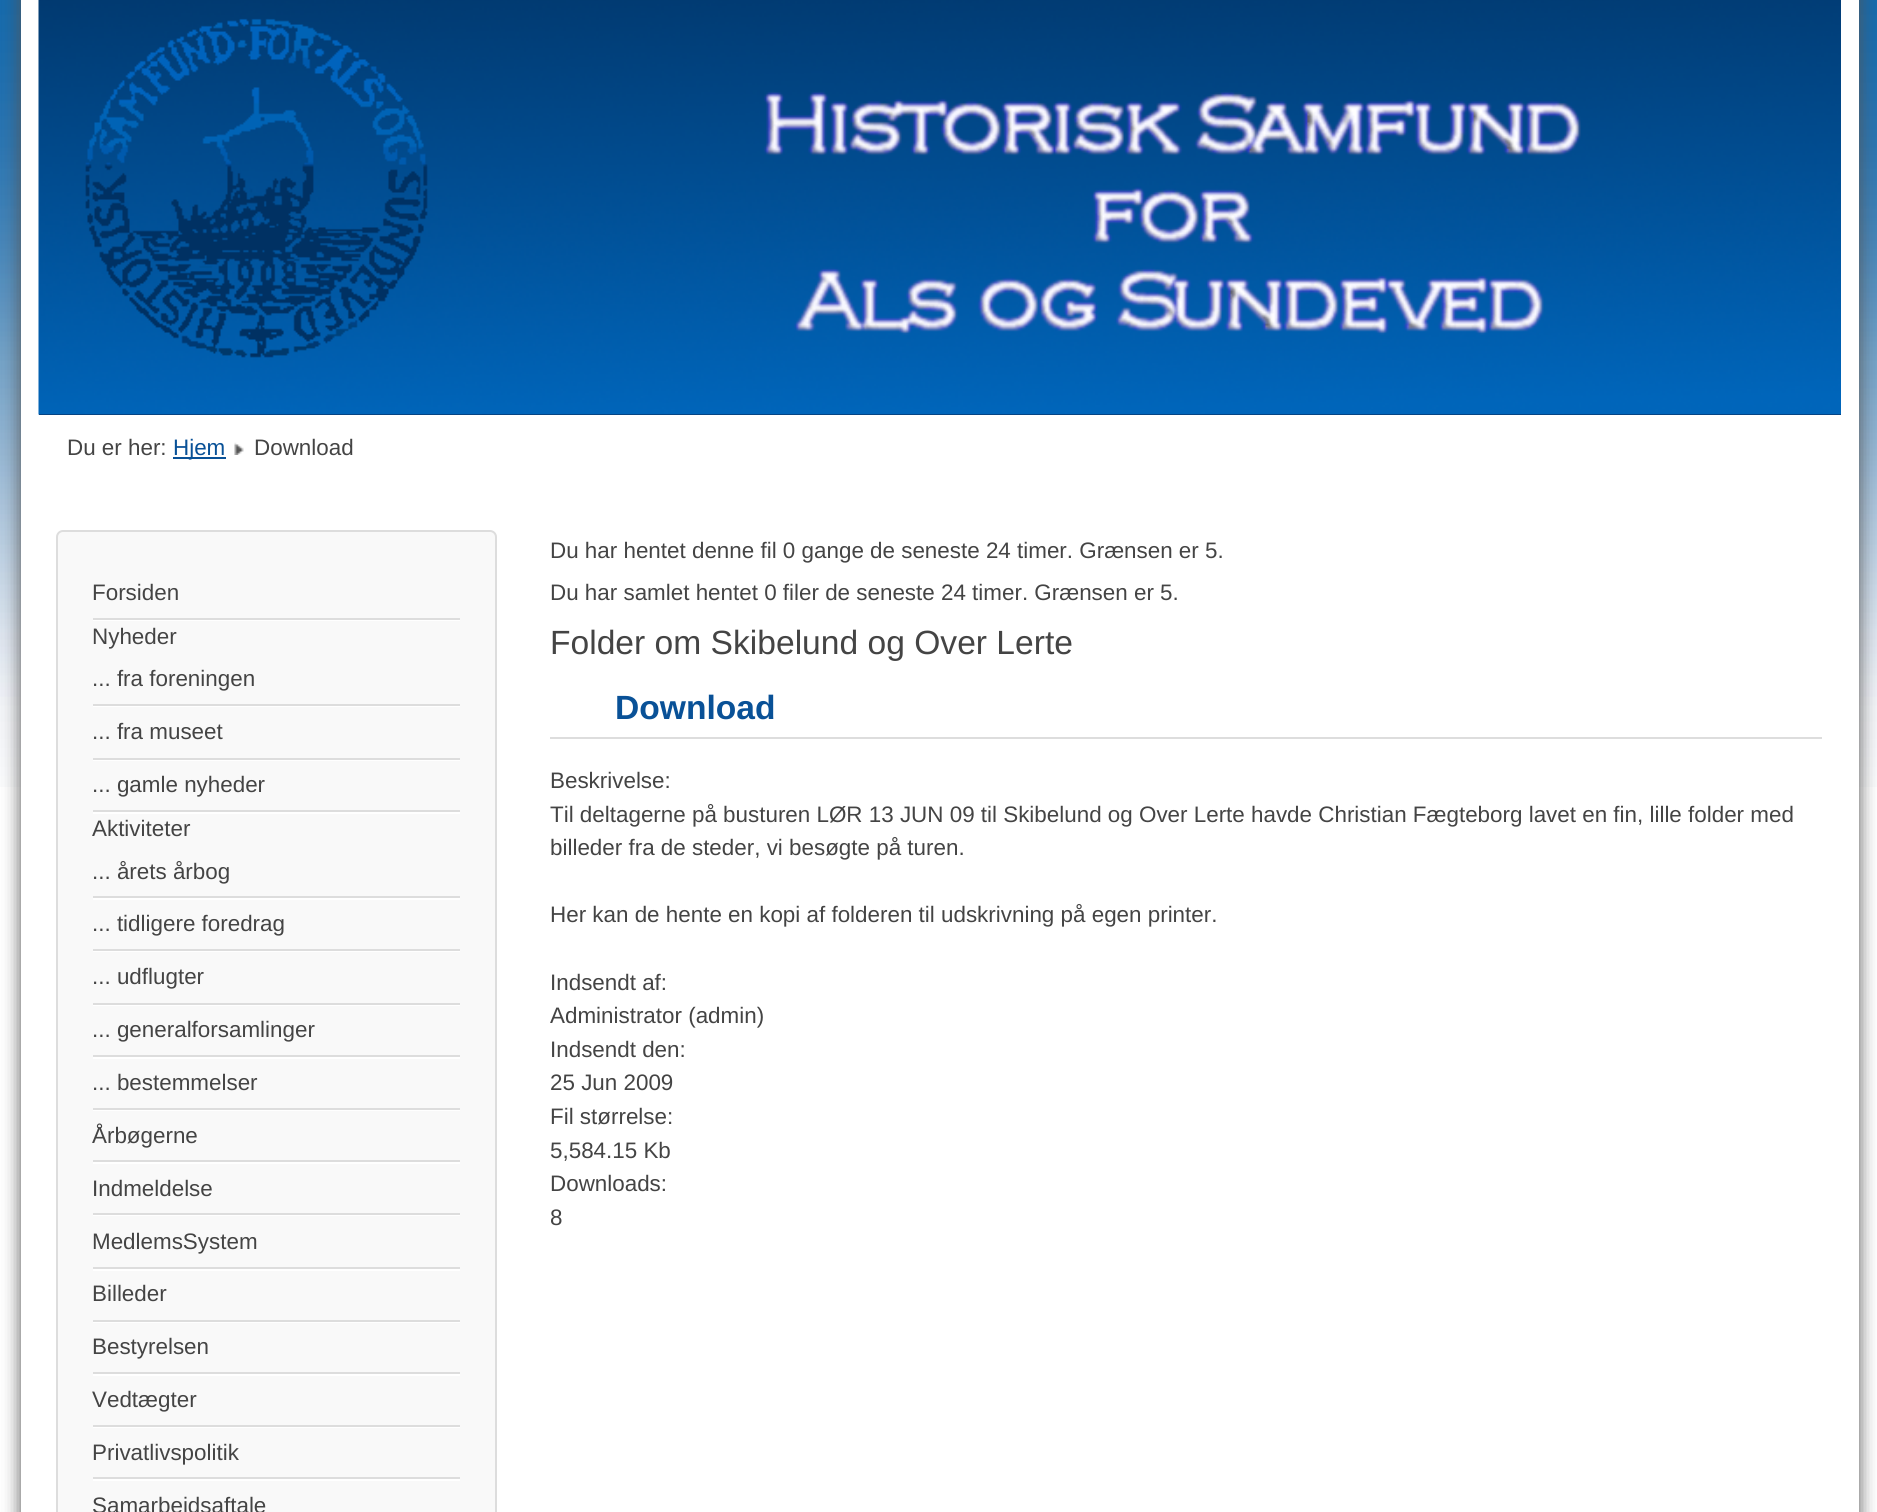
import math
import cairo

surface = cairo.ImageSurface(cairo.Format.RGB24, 1877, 1512)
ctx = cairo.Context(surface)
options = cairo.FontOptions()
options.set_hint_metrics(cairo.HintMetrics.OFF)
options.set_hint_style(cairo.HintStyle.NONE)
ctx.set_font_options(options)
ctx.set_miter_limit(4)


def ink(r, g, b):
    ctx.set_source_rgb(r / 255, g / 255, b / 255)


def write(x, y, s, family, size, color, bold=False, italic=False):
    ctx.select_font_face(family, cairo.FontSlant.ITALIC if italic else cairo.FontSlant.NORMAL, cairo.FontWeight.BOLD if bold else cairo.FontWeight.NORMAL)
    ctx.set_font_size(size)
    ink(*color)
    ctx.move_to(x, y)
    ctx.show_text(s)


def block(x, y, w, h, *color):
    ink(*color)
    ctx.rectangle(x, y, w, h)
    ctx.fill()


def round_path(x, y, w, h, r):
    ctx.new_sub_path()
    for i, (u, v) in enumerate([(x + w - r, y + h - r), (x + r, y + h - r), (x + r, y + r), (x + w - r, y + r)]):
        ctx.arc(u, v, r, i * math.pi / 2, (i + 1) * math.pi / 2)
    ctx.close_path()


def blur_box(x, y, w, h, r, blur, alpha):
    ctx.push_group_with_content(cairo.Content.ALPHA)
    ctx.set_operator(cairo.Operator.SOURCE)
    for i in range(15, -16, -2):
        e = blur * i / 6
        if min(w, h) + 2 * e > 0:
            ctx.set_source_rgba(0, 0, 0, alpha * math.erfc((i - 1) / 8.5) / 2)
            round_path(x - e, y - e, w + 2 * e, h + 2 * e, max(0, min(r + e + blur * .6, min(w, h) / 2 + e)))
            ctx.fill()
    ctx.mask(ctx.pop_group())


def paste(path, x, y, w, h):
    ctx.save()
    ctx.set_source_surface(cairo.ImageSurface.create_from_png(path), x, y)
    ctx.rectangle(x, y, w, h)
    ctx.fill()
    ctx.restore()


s1 = dict(family="Liberation Sans", size=22.4, color=(68, 68, 68))
s2 = dict(family="Liberation Sans", size=22.4, color=(9, 81, 151))
s3 = dict(family="Liberation Sans", size=33.6, color=(68, 68, 68))
s4 = dict(family="Liberation Sans", size=33.6, color=(9, 81, 151), bold=True)

ink(255, 255, 255)
ctx.paint()
paste("pic1.png", 0, 0, 1877, 787)
ink(85, 85, 85)
blur_box(21, -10, 1838, 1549, 0, 9, 1)
block(21, 0, 1838, 1512, 255, 255, 255)
block(39, 414, 1802, 1, 12, 26, 62)
paste("pic2.png", 38, 0, 1803, 415)
paste("pic3.png", 85, 18, 343, 340)
write(67, 455, "Du er her:", **s1)
block(173, 457, 53, 2, 9, 81, 151)
write(173, 455, "Hjem", **s2)
paste("pic4.png", 234, 442, 10, 13)
write(254, 455, "Download", **s1)
ink(249, 249, 249)
round_path(57, 531, 439, 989, 6)
ctx.fill_preserve()
ink(221, 221, 221)
ctx.stroke()
block(93, 620, 367, 1, 255, 255, 255)
block(93, 618, 367, 2, 221, 221, 221)
write(92, 600, "Forsiden", **s1)
write(92, 644, "Nyheder", **s1)
block(93, 706, 367, 1, 255, 255, 255)
block(93, 704, 367, 2, 221, 221, 221)
write(92, 686, "... fra foreningen", **s1)
block(93, 760, 367, 1, 255, 255, 255)
block(93, 758, 367, 2, 221, 221, 221)
write(92, 739, "... fra museet", **s1)
block(93, 812, 367, 2, 255, 255, 255)
block(93, 810, 367, 2, 221, 221, 221)
write(92, 792, "... gamle nyheder", **s1)
write(92, 836, "Aktiviteter", **s1)
block(93, 898, 367, 2, 255, 255, 255)
block(93, 896, 367, 2, 221, 221, 221)
write(92, 879, "... årets årbog", **s1)
block(93, 951, 367, 1, 255, 255, 255)
block(93, 949, 367, 2, 221, 221, 221)
write(92, 931, "... tidligere foredrag", **s1)
block(93, 1005, 367, 1, 255, 255, 255)
block(93, 1003, 367, 2, 221, 221, 221)
write(92, 984, "... udflugter", **s1)
block(93, 1057, 367, 2, 255, 255, 255)
block(93, 1055, 367, 2, 221, 221, 221)
write(92, 1037, "... generalforsamlinger", **s1)
block(93, 1110, 367, 1, 255, 255, 255)
block(93, 1108, 367, 2, 221, 221, 221)
write(92, 1090, "... bestemmelser", **s1)
block(93, 1162, 367, 2, 255, 255, 255)
block(93, 1160, 367, 2, 221, 221, 221)
write(92, 1143, "Årbøgerne", **s1)
block(93, 1215, 367, 1, 255, 255, 255)
block(93, 1213, 367, 2, 221, 221, 221)
write(92, 1196, "Indmeldelse", **s1)
block(93, 1269, 367, 2, 255, 255, 255)
block(93, 1267, 367, 2, 221, 221, 221)
write(92, 1249, "MedlemsSystem", **s1)
block(93, 1322, 367, 1, 255, 255, 255)
block(93, 1320, 367, 2, 221, 221, 221)
write(92, 1301, "Billeder", **s1)
block(93, 1374, 367, 2, 255, 255, 255)
block(93, 1372, 367, 2, 221, 221, 221)
write(92, 1354, "Bestyrelsen", **s1)
block(93, 1427, 367, 1, 255, 255, 255)
block(93, 1425, 367, 2, 221, 221, 221)
write(92, 1407, "Vedtægter", **s1)
block(93, 1479, 367, 2, 255, 255, 255)
block(93, 1477, 367, 2, 221, 221, 221)
write(92, 1460, "Privatlivspolitik", **s1)
write(92, 1513, "Samarbejdsaftale", **s1)
write(550, 558, "Du har hentet denne fil 0 gange de seneste 24 timer. Grænsen er 5.", **s1)
write(550, 600, "Du har samlet hentet 0 filer de seneste 24 timer. Grænsen er 5.", **s1)
block(550, 737, 1272, 2, 221, 221, 221)
write(550, 654, "Folder om Skibelund og Over Lerte", **s3)
write(615, 719, "Download", **s4)
write(550, 788, "Beskrivelse:", **s1)
write(550, 822, "Til deltagerne på busturen LØR 13 JUN 09 til Skibelund og Over Lerte havde Christian Fægteborg lavet en fin, lille folder med", **s1)
write(550, 855, "billeder fra de steder, vi besøgte på turen.", **s1)
write(550, 922, "Her kan de hente en kopi af folderen til udskrivning på egen printer.", **s1)
write(550, 990, "Indsendt af:", **s1)
write(550, 1023, "Administrator (admin)", **s1)
write(550, 1057, "Indsendt den:", **s1)
write(550, 1090, "25 Jun 2009", **s1)
write(550, 1124, "Fil størrelse:", **s1)
write(550, 1158, "5,584.15 Kb", **s1)
write(550, 1191, "Downloads:", **s1)
write(550, 1225, "8", **s1)
surface.write_to_png("screenshot.png")
